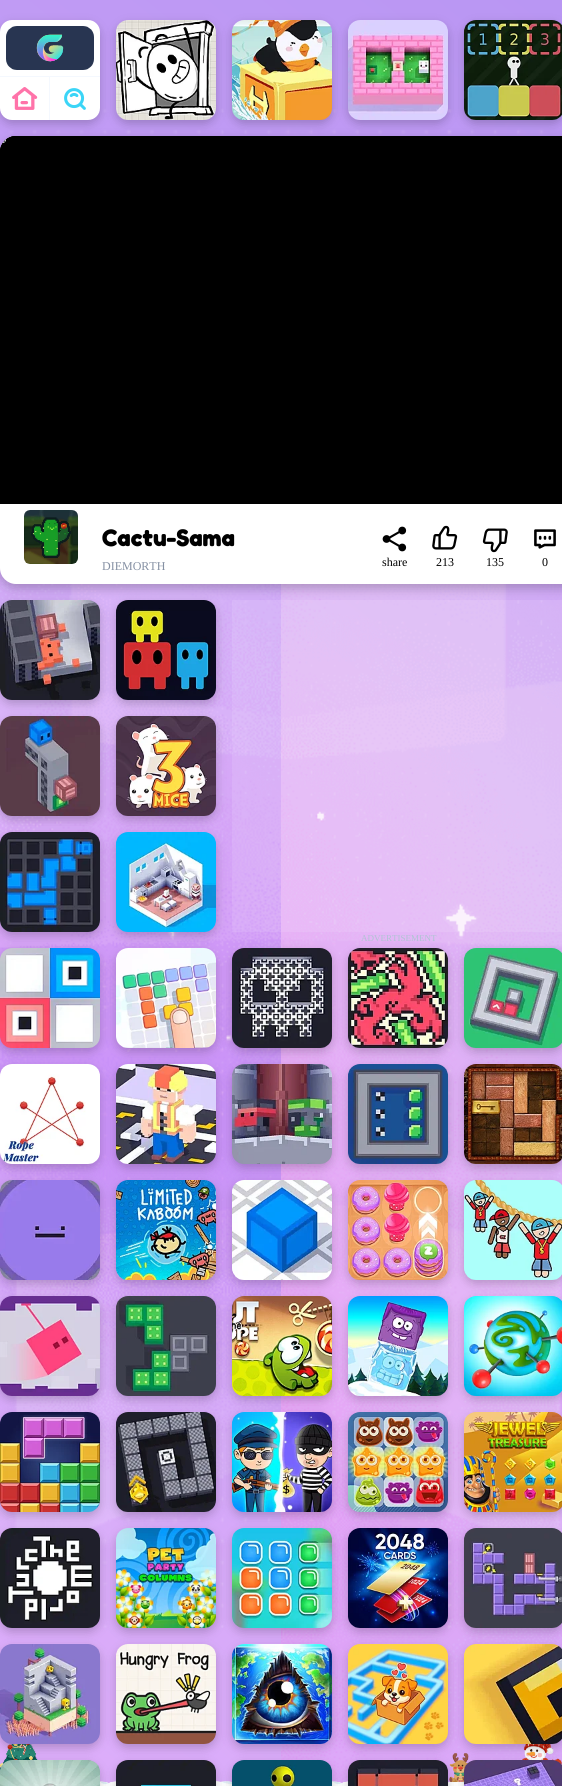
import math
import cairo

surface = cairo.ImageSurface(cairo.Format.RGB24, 562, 1786)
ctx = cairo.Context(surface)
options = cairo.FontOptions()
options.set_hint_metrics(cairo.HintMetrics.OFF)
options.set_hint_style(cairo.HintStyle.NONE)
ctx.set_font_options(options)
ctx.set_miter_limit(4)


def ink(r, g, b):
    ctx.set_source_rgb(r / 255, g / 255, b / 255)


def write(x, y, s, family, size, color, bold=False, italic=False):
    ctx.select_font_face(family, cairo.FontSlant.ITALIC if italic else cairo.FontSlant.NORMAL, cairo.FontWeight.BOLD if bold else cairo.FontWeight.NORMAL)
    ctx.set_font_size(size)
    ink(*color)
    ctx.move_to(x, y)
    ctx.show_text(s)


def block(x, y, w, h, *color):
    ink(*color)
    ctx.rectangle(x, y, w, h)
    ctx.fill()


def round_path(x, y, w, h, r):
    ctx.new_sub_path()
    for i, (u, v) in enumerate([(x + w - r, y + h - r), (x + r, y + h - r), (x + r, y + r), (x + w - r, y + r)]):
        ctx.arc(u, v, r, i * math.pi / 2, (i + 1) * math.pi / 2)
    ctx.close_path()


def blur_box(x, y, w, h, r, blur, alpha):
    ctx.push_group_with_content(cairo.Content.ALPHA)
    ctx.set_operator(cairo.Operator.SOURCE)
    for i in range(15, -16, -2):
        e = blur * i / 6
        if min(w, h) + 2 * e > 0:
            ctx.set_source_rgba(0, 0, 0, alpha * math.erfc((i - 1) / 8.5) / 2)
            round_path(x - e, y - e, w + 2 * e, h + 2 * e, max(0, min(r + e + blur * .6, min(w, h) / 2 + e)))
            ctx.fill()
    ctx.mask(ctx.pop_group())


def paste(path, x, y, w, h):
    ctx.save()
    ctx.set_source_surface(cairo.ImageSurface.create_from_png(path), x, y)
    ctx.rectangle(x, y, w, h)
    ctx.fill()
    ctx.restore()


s1 = dict(family="Fredoka", size=24, color=(0, 0, 0), bold=True)
s2 = dict(family="Liberation Serif", size=12, color=(133, 144, 163))
s3 = dict(family="Liberation Serif", size=12, color=(0, 0, 0))
s4 = dict(family="Liberation Serif", size=9, color=(175, 195, 211))

ink(255, 255, 255)
ctx.paint()
gradient = cairo.LinearGradient(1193, 505, -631, 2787)
gradient.add_color_stop_rgba(0, 0.725, 0.588, 0.953, 1)
gradient.add_color_stop_rgba(1, 0.965, 0.745, 1, 1)
ctx.set_source(gradient)
ctx.rectangle(0, 0, 562, 1784)
ctx.fill()
paste("pic1.png", 0, 108, 281, 1520)
paste("pic2.png", 281, 109, 281, 1675)
ink(0, 0, 0)
blur_box(-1, 139, 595, 450, 17, 5, 0.2)
ink(255, 255, 255)
round_path(0, 136, 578, 448, 16)
ctx.fill()
ink(0, 0, 0)
ctx.new_path()
ctx.move_to(16, 136)
ctx.line_to(562, 136)
ctx.curve_to(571, 136, 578, 143, 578, 152)
ctx.line_to(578, 504)
ctx.line_to(0, 504)
ctx.line_to(0, 152)
ctx.curve_to(0, 143, 7, 136, 16, 136)
ctx.close_path()
ctx.fill()
paste("pic10.png", 0, 136, 16, 16)
ink(0, 0, 0)
blur_box(0, 24, 100, 100, 12, 5, 0.2)
ink(255, 255, 255)
round_path(0, 20, 100, 100, 12)
ctx.fill()
paste("pic3.png", 6, 26, 88, 44)
block(0, 76, 100, 1, 244, 248, 254)
block(49, 77, 1, 43, 244, 248, 254)
paste("pic4.png", 12, 87, 26, 23)
paste("pic5.png", 64, 88, 22, 22)
ink(0, 0, 0)
blur_box(116, 24, 100, 100, 12, 5, 0.2)
paste("pic6.png", 116, 20, 100, 100)
blur_box(232, 24, 100, 100, 12, 5, 0.2)
paste("pic7.png", 232, 20, 100, 100)
blur_box(348, 24, 100, 100, 12, 5, 0.2)
paste("pic8.png", 348, 20, 100, 100)
blur_box(464, 24, 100, 100, 12, 5, 0.2)
paste("pic9.png", 464, 20, 98, 100)
paste("pic11.png", 24, 510, 54, 54)
write(102, 546, "Cactu-Sama", **s1)
write(102, 570, "DIEMORTH", **s2)
paste("pic12.png", 382, 526, 25, 26)
write(382, 566, "share", **s3)
paste("pic13.png", 432, 525, 26, 25)
write(436, 566, "213", **s3)
paste("pic14.png", 482, 528, 26, 25)
write(486, 566, "135", **s3)
paste("pic15.png", 534, 529, 22, 20)
write(542, 566, "0", **s3)
ink(0, 0, 0)
blur_box(0, 604, 100, 100, 12, 5, 0.2)
paste("pic16.png", 0, 600, 100, 100)
blur_box(116, 604, 100, 100, 12, 5, 0.2)
paste("pic17.png", 116, 600, 100, 100)
blur_box(0, 720, 100, 100, 12, 5, 0.2)
paste("pic18.png", 0, 716, 100, 100)
blur_box(116, 720, 100, 100, 12, 5, 0.2)
paste("pic19.png", 116, 716, 100, 100)
blur_box(0, 836, 100, 100, 12, 5, 0.2)
paste("pic20.png", 0, 832, 100, 100)
blur_box(116, 836, 100, 100, 12, 5, 0.2)
paste("pic21.png", 116, 832, 100, 100)
ctx.set_source_rgba(1, 1, 1, 0.1)
ctx.rectangle(232, 600, 330, 332)
ctx.fill()
write(361, 941, "ADVERTISEMENT", **s4)
ink(0, 0, 0)
blur_box(0, 952, 100, 100, 12, 5, 0.2)
paste("pic22.png", 0, 948, 100, 100)
blur_box(116, 952, 100, 100, 12, 5, 0.2)
paste("pic23.png", 116, 948, 100, 100)
blur_box(232, 952, 100, 100, 12, 5, 0.2)
paste("pic24.png", 232, 948, 100, 100)
blur_box(348, 952, 100, 100, 12, 5, 0.2)
paste("pic25.png", 348, 948, 100, 100)
blur_box(464, 952, 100, 100, 12, 5, 0.2)
paste("pic26.png", 464, 948, 98, 100)
blur_box(0, 1068, 100, 100, 12, 5, 0.2)
paste("pic27.png", 0, 1064, 100, 100)
blur_box(116, 1068, 100, 100, 12, 5, 0.2)
paste("pic28.png", 116, 1064, 100, 100)
blur_box(232, 1068, 100, 100, 12, 5, 0.2)
paste("pic29.png", 232, 1064, 100, 100)
blur_box(348, 1068, 100, 100, 12, 5, 0.2)
paste("pic30.png", 348, 1064, 100, 100)
blur_box(464, 1068, 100, 100, 12, 5, 0.2)
paste("pic31.png", 464, 1064, 98, 100)
blur_box(0, 1184, 100, 100, 12, 5, 0.2)
paste("pic32.png", 0, 1180, 100, 100)
blur_box(116, 1184, 100, 100, 12, 5, 0.2)
paste("pic33.png", 116, 1180, 100, 100)
blur_box(232, 1184, 100, 100, 12, 5, 0.2)
paste("pic34.png", 232, 1180, 100, 100)
blur_box(348, 1184, 100, 100, 12, 5, 0.2)
paste("pic35.png", 348, 1180, 100, 100)
blur_box(464, 1184, 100, 100, 12, 5, 0.2)
paste("pic36.png", 464, 1180, 98, 100)
blur_box(0, 1300, 100, 100, 12, 5, 0.2)
paste("pic37.png", 0, 1296, 100, 100)
blur_box(116, 1300, 100, 100, 12, 5, 0.2)
paste("pic38.png", 116, 1296, 100, 100)
blur_box(232, 1300, 100, 100, 12, 5, 0.2)
paste("pic39.png", 232, 1296, 100, 100)
blur_box(348, 1300, 100, 100, 12, 5, 0.2)
paste("pic40.png", 348, 1296, 100, 100)
blur_box(464, 1300, 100, 100, 12, 5, 0.2)
paste("pic41.png", 464, 1296, 98, 100)
blur_box(0, 1416, 100, 100, 12, 5, 0.2)
paste("pic42.png", 0, 1412, 100, 100)
blur_box(116, 1416, 100, 100, 12, 5, 0.2)
paste("pic43.png", 116, 1412, 100, 100)
blur_box(232, 1416, 100, 100, 12, 5, 0.2)
paste("pic44.png", 232, 1412, 100, 100)
blur_box(348, 1416, 100, 100, 12, 5, 0.2)
paste("pic45.png", 348, 1412, 100, 100)
blur_box(464, 1416, 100, 100, 12, 5, 0.2)
paste("pic46.png", 464, 1412, 98, 100)
blur_box(0, 1532, 100, 100, 12, 5, 0.2)
paste("pic47.png", 0, 1528, 100, 100)
blur_box(116, 1532, 100, 100, 12, 5, 0.2)
paste("pic48.png", 116, 1528, 100, 100)
blur_box(232, 1532, 100, 100, 12, 5, 0.2)
paste("pic49.png", 232, 1528, 100, 100)
blur_box(348, 1532, 100, 100, 12, 5, 0.2)
paste("pic50.png", 348, 1528, 100, 100)
blur_box(464, 1532, 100, 100, 12, 5, 0.2)
paste("pic51.png", 464, 1528, 98, 100)
paste("pic62.png", 0, 1743, 562, 43)
blur_box(0, 1648, 100, 100, 12, 5, 0.2)
paste("pic52.png", 0, 1644, 100, 100)
blur_box(116, 1648, 100, 100, 12, 5, 0.2)
paste("pic53.png", 116, 1644, 100, 100)
blur_box(232, 1648, 100, 100, 12, 5, 0.2)
paste("pic54.png", 232, 1644, 100, 100)
blur_box(348, 1648, 100, 100, 12, 5, 0.2)
paste("pic55.png", 348, 1644, 100, 100)
blur_box(464, 1648, 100, 100, 12, 5, 0.2)
paste("pic56.png", 464, 1644, 98, 100)
blur_box(0, 1764, 100, 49, 12, 5, 0.2)
paste("pic57.png", 0, 1760, 100, 26)
blur_box(116, 1764, 100, 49, 12, 5, 0.2)
paste("pic58.png", 116, 1760, 100, 26)
blur_box(232, 1764, 100, 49, 12, 5, 0.2)
paste("pic59.png", 232, 1760, 100, 26)
blur_box(348, 1764, 100, 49, 12, 5, 0.2)
paste("pic60.png", 348, 1760, 100, 26)
blur_box(464, 1764, 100, 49, 12, 5, 0.2)
paste("pic61.png", 464, 1760, 98, 26)
surface.write_to_png("screenshot.png")
